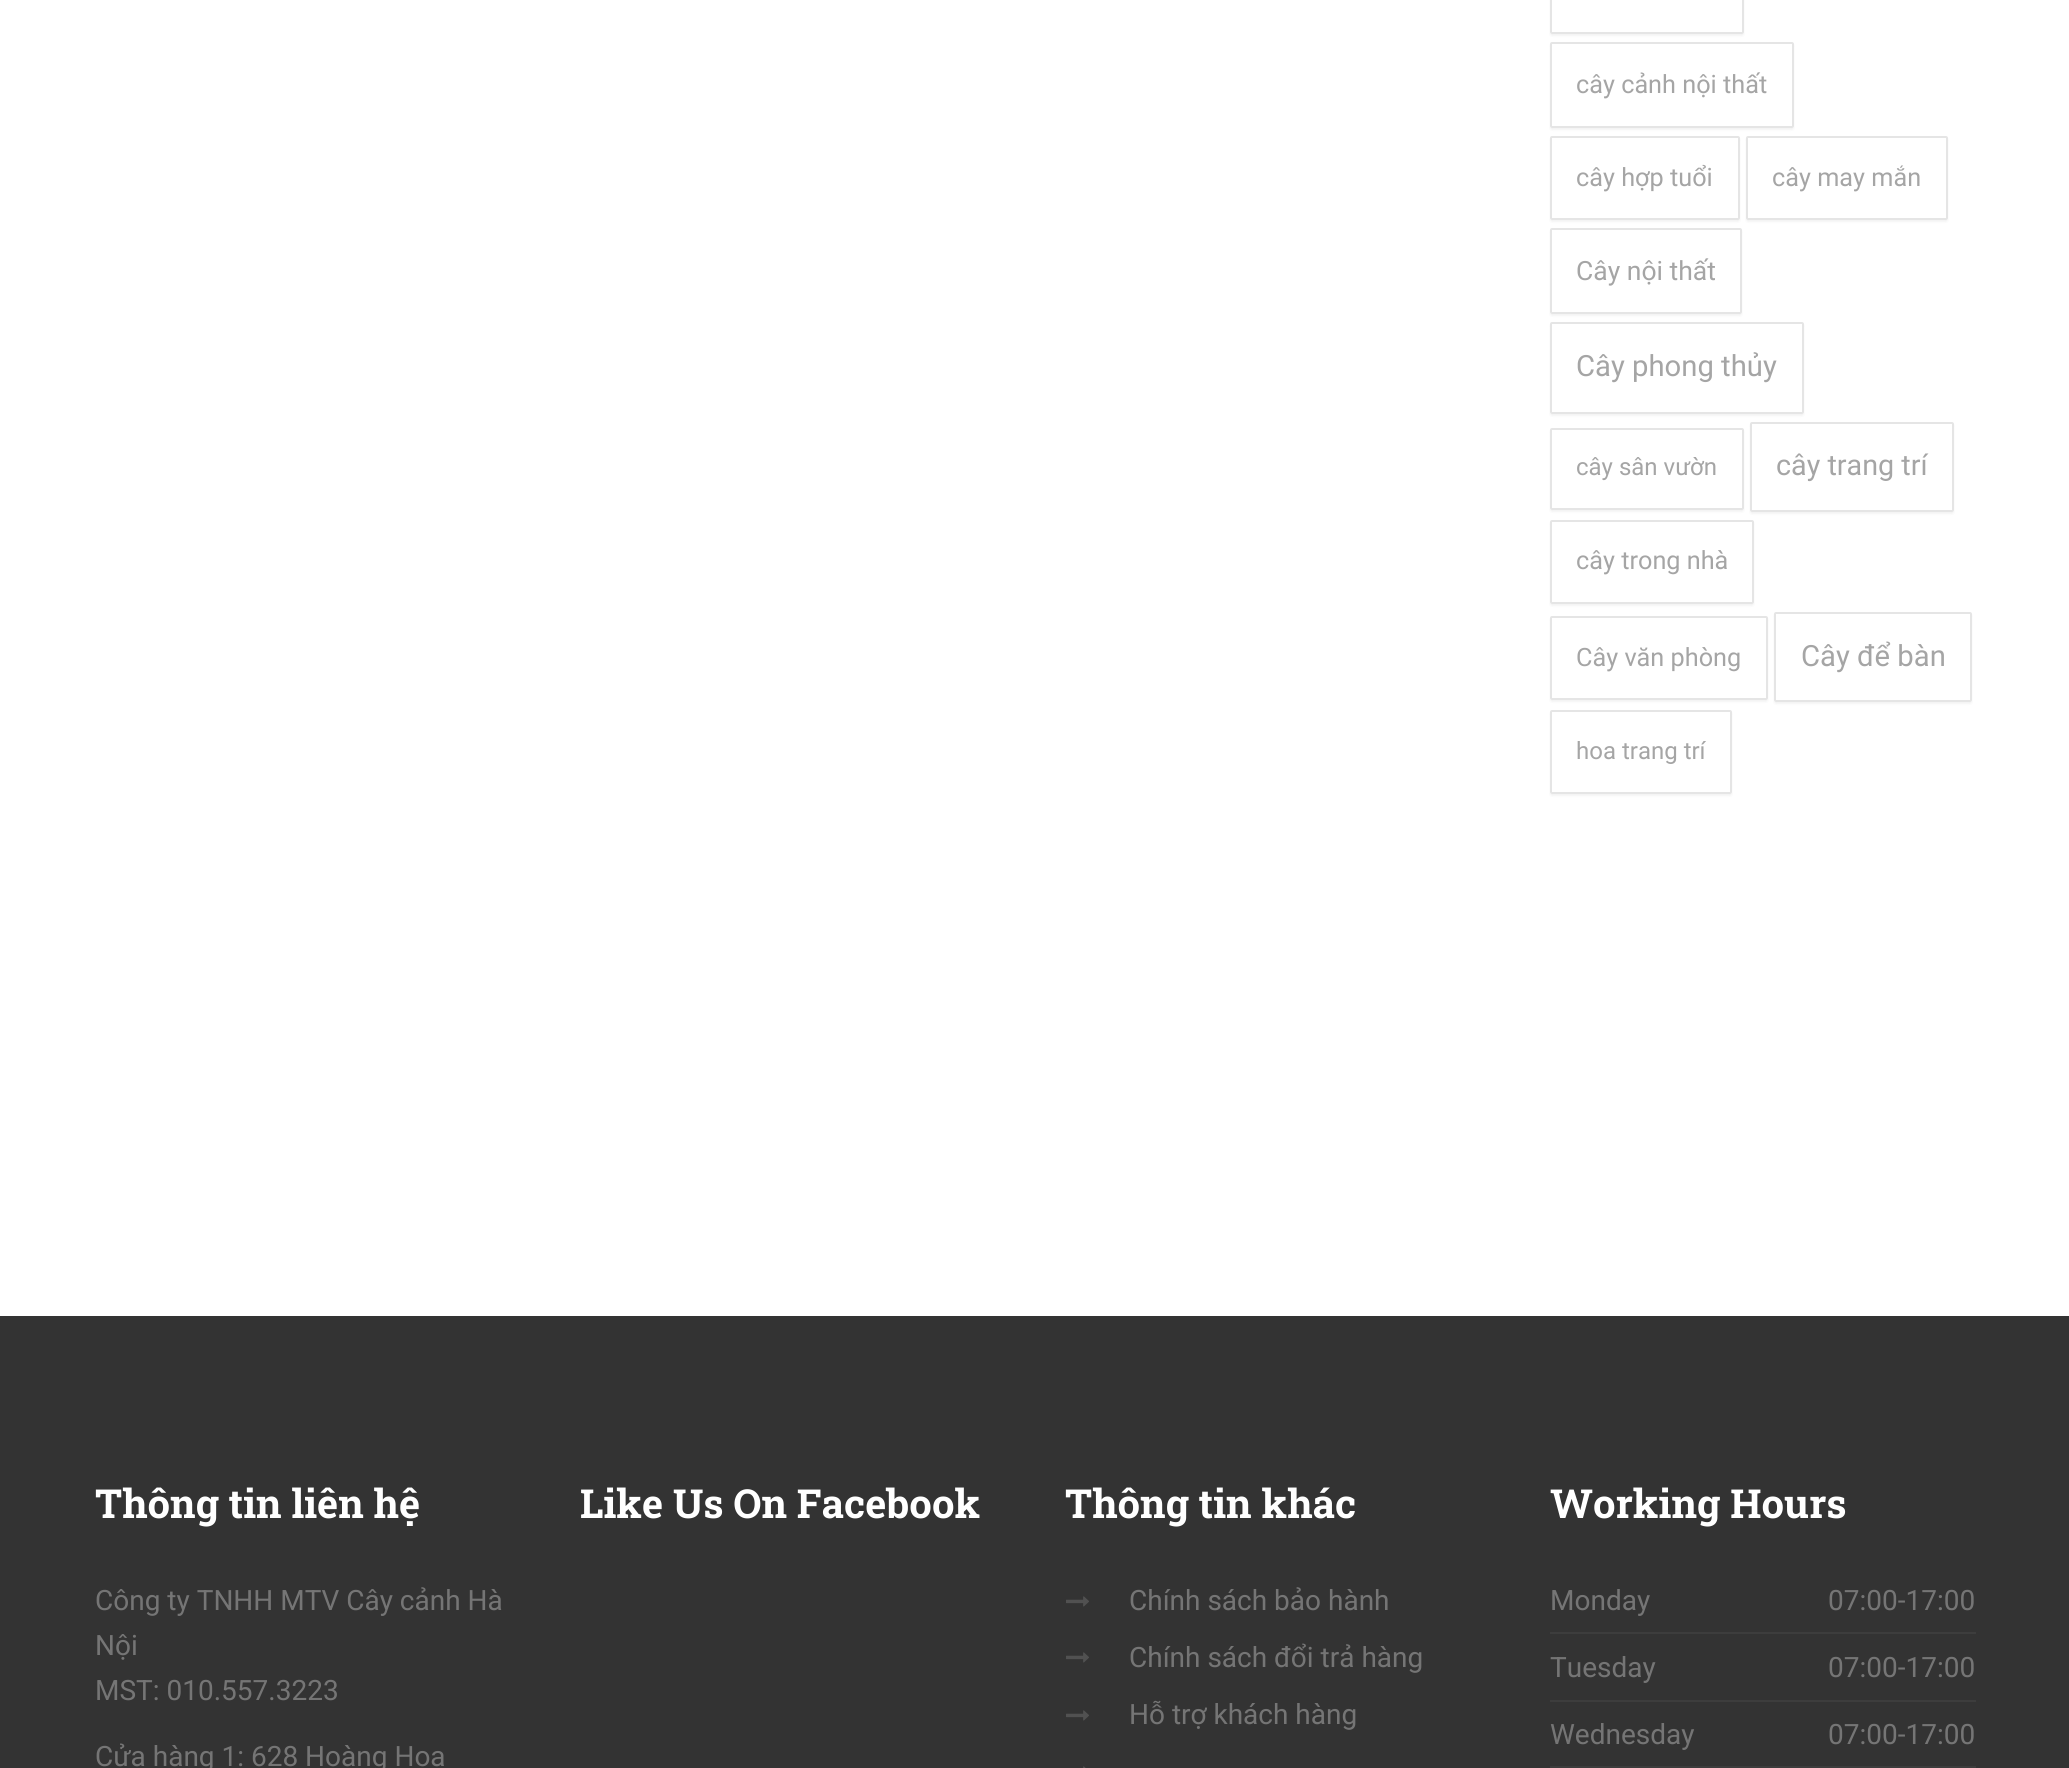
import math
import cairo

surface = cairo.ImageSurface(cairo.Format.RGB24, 2069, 1768)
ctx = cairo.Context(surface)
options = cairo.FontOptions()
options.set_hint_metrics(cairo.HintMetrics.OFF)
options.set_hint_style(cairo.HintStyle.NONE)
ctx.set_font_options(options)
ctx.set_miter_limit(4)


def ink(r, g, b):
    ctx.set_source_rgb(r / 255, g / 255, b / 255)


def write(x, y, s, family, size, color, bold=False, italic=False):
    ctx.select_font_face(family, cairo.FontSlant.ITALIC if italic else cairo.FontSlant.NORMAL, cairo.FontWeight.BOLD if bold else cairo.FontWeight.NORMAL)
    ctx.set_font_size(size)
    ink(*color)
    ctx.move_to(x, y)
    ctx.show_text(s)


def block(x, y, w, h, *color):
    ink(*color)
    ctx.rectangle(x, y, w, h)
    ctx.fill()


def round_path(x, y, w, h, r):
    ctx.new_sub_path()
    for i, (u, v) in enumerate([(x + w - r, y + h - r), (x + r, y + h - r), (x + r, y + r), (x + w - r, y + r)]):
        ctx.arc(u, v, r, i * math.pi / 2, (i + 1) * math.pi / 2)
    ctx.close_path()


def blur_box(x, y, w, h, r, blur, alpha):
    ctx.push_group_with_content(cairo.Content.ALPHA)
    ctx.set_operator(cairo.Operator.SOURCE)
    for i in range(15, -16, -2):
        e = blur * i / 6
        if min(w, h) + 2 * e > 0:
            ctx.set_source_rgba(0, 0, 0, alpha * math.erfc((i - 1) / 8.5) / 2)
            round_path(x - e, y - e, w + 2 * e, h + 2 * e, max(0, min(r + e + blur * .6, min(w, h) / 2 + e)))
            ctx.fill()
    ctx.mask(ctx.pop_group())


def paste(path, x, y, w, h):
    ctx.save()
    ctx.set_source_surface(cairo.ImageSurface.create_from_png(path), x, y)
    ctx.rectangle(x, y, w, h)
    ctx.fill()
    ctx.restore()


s1 = dict(family="Roboto", size=25.25, color=(165, 165, 165))
s2 = dict(family="Roboto", size=26.5, color=(165, 165, 165))
s3 = dict(family="Roboto", size=29.25, color=(165, 165, 165))
s4 = dict(family="Roboto", size=24, color=(165, 165, 165))
s5 = dict(family="Roboto", size=28.75, color=(165, 165, 165))
s6 = dict(family="Roboto Slab", size=40, color=(255, 255, 255), bold=True)
s7 = dict(family="Roboto", size=28, color=(117, 117, 117))

ink(255, 255, 255)
ctx.paint()
ctx.save()
ctx.set_fill_rule(cairo.FillRule.EVEN_ODD)
ctx.new_path()
ctx.move_to(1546, 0)
ctx.line_to(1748, 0)
ctx.line_to(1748, 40)
ctx.line_to(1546, 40)
ctx.close_path()
ctx.move_to(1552, -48)
ctx.line_to(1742, -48)
ctx.curve_to(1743, -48, 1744, -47, 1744, -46)
ctx.line_to(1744, 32)
ctx.curve_to(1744, 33, 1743, 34, 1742, 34)
ctx.line_to(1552, 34)
ctx.curve_to(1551, 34, 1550, 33, 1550, 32)
ctx.line_to(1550, -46)
ctx.curve_to(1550, -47, 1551, -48, 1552, -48)
ctx.close_path()
ctx.clip()
ink(0, 0, 0)
blur_box(1550, -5, 194, 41, 2, 1, 0.05)
ctx.restore()
round_path(1551, -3, 192, 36, 1)
ink(229, 229, 229)
ctx.stroke()
ctx.save()
ctx.set_fill_rule(cairo.FillRule.EVEN_ODD)
ctx.new_path()
ctx.move_to(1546, 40)
ctx.line_to(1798, 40)
ctx.line_to(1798, 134)
ctx.line_to(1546, 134)
ctx.close_path()
ctx.move_to(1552, 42)
ctx.line_to(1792, 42)
ctx.curve_to(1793, 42, 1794, 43, 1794, 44)
ctx.line_to(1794, 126)
ctx.curve_to(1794, 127, 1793, 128, 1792, 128)
ctx.line_to(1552, 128)
ctx.curve_to(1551, 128, 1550, 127, 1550, 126)
ctx.line_to(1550, 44)
ctx.curve_to(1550, 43, 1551, 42, 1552, 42)
ctx.close_path()
ctx.clip()
ink(0, 0, 0)
blur_box(1550, 44, 244, 86, 2, 1, 0.05)
ctx.restore()
round_path(1551, 43, 242, 84, 1)
ctx.stroke()
write(1576, 93, "cây cảnh nội thất", **s1)
ctx.save()
ctx.set_fill_rule(cairo.FillRule.EVEN_ODD)
ctx.new_path()
ctx.move_to(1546, 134)
ctx.line_to(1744, 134)
ctx.line_to(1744, 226)
ctx.line_to(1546, 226)
ctx.close_path()
ctx.move_to(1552, 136)
ctx.line_to(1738, 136)
ctx.curve_to(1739, 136, 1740, 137, 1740, 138)
ctx.line_to(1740, 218)
ctx.curve_to(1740, 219, 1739, 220, 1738, 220)
ctx.line_to(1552, 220)
ctx.curve_to(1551, 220, 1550, 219, 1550, 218)
ctx.line_to(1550, 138)
ctx.curve_to(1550, 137, 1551, 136, 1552, 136)
ctx.close_path()
ctx.clip()
ink(0, 0, 0)
blur_box(1550, 138, 190, 84, 2, 1, 0.05)
ctx.restore()
round_path(1551, 137, 188, 82, 1)
ink(229, 229, 229)
ctx.stroke()
write(1576, 186, "cây hợp tuổi", **s1)
ctx.save()
ctx.set_fill_rule(cairo.FillRule.EVEN_ODD)
ctx.new_path()
ctx.move_to(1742, 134)
ctx.line_to(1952, 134)
ctx.line_to(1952, 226)
ctx.line_to(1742, 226)
ctx.close_path()
ctx.move_to(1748, 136)
ctx.line_to(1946, 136)
ctx.curve_to(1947, 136, 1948, 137, 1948, 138)
ctx.line_to(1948, 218)
ctx.curve_to(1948, 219, 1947, 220, 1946, 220)
ctx.line_to(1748, 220)
ctx.curve_to(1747, 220, 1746, 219, 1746, 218)
ctx.line_to(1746, 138)
ctx.curve_to(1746, 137, 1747, 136, 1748, 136)
ctx.close_path()
ctx.clip()
ink(0, 0, 0)
blur_box(1746, 138, 202, 84, 2, 1, 0.05)
ctx.restore()
round_path(1747, 137, 200, 82, 1)
ink(229, 229, 229)
ctx.stroke()
write(1772, 186, "cây may mắn", **s1)
ctx.save()
ctx.set_fill_rule(cairo.FillRule.EVEN_ODD)
ctx.new_path()
ctx.move_to(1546, 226)
ctx.line_to(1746, 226)
ctx.line_to(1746, 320)
ctx.line_to(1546, 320)
ctx.close_path()
ctx.move_to(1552, 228)
ctx.line_to(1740, 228)
ctx.curve_to(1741, 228, 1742, 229, 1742, 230)
ctx.line_to(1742, 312)
ctx.curve_to(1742, 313, 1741, 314, 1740, 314)
ctx.line_to(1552, 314)
ctx.curve_to(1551, 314, 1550, 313, 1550, 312)
ctx.line_to(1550, 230)
ctx.curve_to(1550, 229, 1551, 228, 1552, 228)
ctx.close_path()
ctx.clip()
ink(0, 0, 0)
blur_box(1550, 230, 192, 86, 2, 1, 0.05)
ctx.restore()
round_path(1551, 229, 190, 84, 1)
ink(229, 229, 229)
ctx.stroke()
write(1576, 280, "Cây nội thất", **s2)
ctx.save()
ctx.set_fill_rule(cairo.FillRule.EVEN_ODD)
ctx.new_path()
ctx.move_to(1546, 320)
ctx.line_to(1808, 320)
ctx.line_to(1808, 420)
ctx.line_to(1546, 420)
ctx.close_path()
ctx.move_to(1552, 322)
ctx.line_to(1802, 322)
ctx.curve_to(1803, 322, 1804, 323, 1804, 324)
ctx.line_to(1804, 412)
ctx.curve_to(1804, 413, 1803, 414, 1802, 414)
ctx.line_to(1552, 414)
ctx.curve_to(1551, 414, 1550, 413, 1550, 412)
ctx.line_to(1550, 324)
ctx.curve_to(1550, 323, 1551, 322, 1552, 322)
ctx.close_path()
ctx.clip()
ink(0, 0, 0)
blur_box(1550, 324, 254, 92, 2, 1, 0.05)
ctx.restore()
round_path(1551, 323, 252, 90, 1)
ink(229, 229, 229)
ctx.stroke()
write(1576, 376, "Cây phong thủy", **s3)
ctx.save()
ctx.set_fill_rule(cairo.FillRule.EVEN_ODD)
ctx.new_path()
ctx.move_to(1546, 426)
ctx.line_to(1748, 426)
ctx.line_to(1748, 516)
ctx.line_to(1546, 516)
ctx.close_path()
ctx.move_to(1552, 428)
ctx.line_to(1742, 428)
ctx.curve_to(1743, 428, 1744, 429, 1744, 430)
ctx.line_to(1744, 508)
ctx.curve_to(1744, 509, 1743, 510, 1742, 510)
ctx.line_to(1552, 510)
ctx.curve_to(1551, 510, 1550, 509, 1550, 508)
ctx.line_to(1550, 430)
ctx.curve_to(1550, 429, 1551, 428, 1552, 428)
ctx.close_path()
ctx.clip()
ink(0, 0, 0)
blur_box(1550, 430, 194, 82, 2, 1, 0.05)
ctx.restore()
round_path(1551, 429, 192, 80, 1)
ink(229, 229, 229)
ctx.stroke()
write(1576, 475, "cây sân vườn", **s4)
ctx.save()
ctx.set_fill_rule(cairo.FillRule.EVEN_ODD)
ctx.new_path()
ctx.move_to(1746, 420)
ctx.line_to(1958, 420)
ctx.line_to(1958, 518)
ctx.line_to(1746, 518)
ctx.close_path()
ctx.move_to(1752, 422)
ctx.line_to(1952, 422)
ctx.curve_to(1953, 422, 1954, 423, 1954, 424)
ctx.line_to(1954, 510)
ctx.curve_to(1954, 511, 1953, 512, 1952, 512)
ctx.line_to(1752, 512)
ctx.curve_to(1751, 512, 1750, 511, 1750, 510)
ctx.line_to(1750, 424)
ctx.curve_to(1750, 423, 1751, 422, 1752, 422)
ctx.close_path()
ctx.clip()
ink(0, 0, 0)
blur_box(1750, 424, 204, 90, 2, 1, 0.05)
ctx.restore()
round_path(1751, 423, 202, 88, 1)
ink(229, 229, 229)
ctx.stroke()
write(1776, 475, "cây trang trí", **s5)
ctx.save()
ctx.set_fill_rule(cairo.FillRule.EVEN_ODD)
ctx.new_path()
ctx.move_to(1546, 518)
ctx.line_to(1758, 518)
ctx.line_to(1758, 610)
ctx.line_to(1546, 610)
ctx.close_path()
ctx.move_to(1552, 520)
ctx.line_to(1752, 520)
ctx.curve_to(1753, 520, 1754, 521, 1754, 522)
ctx.line_to(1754, 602)
ctx.curve_to(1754, 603, 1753, 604, 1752, 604)
ctx.line_to(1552, 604)
ctx.curve_to(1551, 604, 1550, 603, 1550, 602)
ctx.line_to(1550, 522)
ctx.curve_to(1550, 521, 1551, 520, 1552, 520)
ctx.close_path()
ctx.clip()
ink(0, 0, 0)
blur_box(1550, 522, 204, 84, 2, 1, 0.05)
ctx.restore()
round_path(1551, 521, 202, 82, 1)
ink(229, 229, 229)
ctx.stroke()
write(1576, 569, "cây trong nhà", **s1)
ctx.save()
ctx.set_fill_rule(cairo.FillRule.EVEN_ODD)
ctx.new_path()
ctx.move_to(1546, 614)
ctx.line_to(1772, 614)
ctx.line_to(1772, 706)
ctx.line_to(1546, 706)
ctx.close_path()
ctx.move_to(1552, 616)
ctx.line_to(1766, 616)
ctx.curve_to(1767, 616, 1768, 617, 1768, 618)
ctx.line_to(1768, 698)
ctx.curve_to(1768, 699, 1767, 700, 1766, 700)
ctx.line_to(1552, 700)
ctx.curve_to(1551, 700, 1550, 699, 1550, 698)
ctx.line_to(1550, 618)
ctx.curve_to(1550, 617, 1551, 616, 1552, 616)
ctx.close_path()
ctx.clip()
ink(0, 0, 0)
blur_box(1550, 618, 218, 84, 2, 1, 0.05)
ctx.restore()
round_path(1551, 617, 216, 82, 1)
ink(229, 229, 229)
ctx.stroke()
write(1576, 666, "Cây văn phòng", **s1)
ctx.save()
ctx.set_fill_rule(cairo.FillRule.EVEN_ODD)
ctx.new_path()
ctx.move_to(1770, 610)
ctx.line_to(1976, 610)
ctx.line_to(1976, 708)
ctx.line_to(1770, 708)
ctx.close_path()
ctx.move_to(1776, 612)
ctx.line_to(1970, 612)
ctx.curve_to(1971, 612, 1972, 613, 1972, 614)
ctx.line_to(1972, 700)
ctx.curve_to(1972, 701, 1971, 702, 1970, 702)
ctx.line_to(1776, 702)
ctx.curve_to(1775, 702, 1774, 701, 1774, 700)
ctx.line_to(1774, 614)
ctx.curve_to(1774, 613, 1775, 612, 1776, 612)
ctx.close_path()
ctx.clip()
ink(0, 0, 0)
blur_box(1774, 614, 198, 90, 2, 1, 0.05)
ctx.restore()
round_path(1775, 613, 196, 88, 1)
ink(229, 229, 229)
ctx.stroke()
write(1801, 666, "Cây để bàn", **s3)
ctx.save()
ctx.set_fill_rule(cairo.FillRule.EVEN_ODD)
ctx.new_path()
ctx.move_to(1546, 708)
ctx.line_to(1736, 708)
ctx.line_to(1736, 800)
ctx.line_to(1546, 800)
ctx.close_path()
ctx.move_to(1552, 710)
ctx.line_to(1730, 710)
ctx.curve_to(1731, 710, 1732, 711, 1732, 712)
ctx.line_to(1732, 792)
ctx.curve_to(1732, 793, 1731, 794, 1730, 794)
ctx.line_to(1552, 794)
ctx.curve_to(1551, 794, 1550, 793, 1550, 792)
ctx.line_to(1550, 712)
ctx.curve_to(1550, 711, 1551, 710, 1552, 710)
ctx.close_path()
ctx.clip()
ink(0, 0, 0)
blur_box(1550, 712, 182, 84, 2, 1, 0.05)
ctx.restore()
round_path(1551, 711, 180, 82, 1)
ink(229, 229, 229)
ctx.stroke()
write(1576, 759, "hoa trang trí", **s4)
block(0, 1316, 2069, 452, 51, 51, 51)
write(95, 1518, "Thông tin liên hệ", **s6)
write(95, 1610, "Công ty TNHH MTV Cây cảnh Hà", **s7)
write(95, 1655, "Nội", **s7)
write(95, 1700, "MST: 010.557.3223", **s7)
write(95, 1766, "Cửa hàng 1: 628 Hoàng Hoa", **s7)
write(580, 1518, "Like Us On Facebook", **s6)
write(1065, 1518, "Thông tin khác", **s6)
paste("pic1.png", 1066, 1596, 23, 11)
write(1129, 1610, "Chính sách bảo hành", **s7)
paste("pic1.png", 1066, 1652, 23, 11)
write(1129, 1667, "Chính sách đổi trả hàng", **s7)
paste("pic1.png", 1066, 1710, 23, 11)
write(1129, 1724, "Hỗ trợ khách hàng", **s7)
paste("pic2.png", 1083, 1766, 3, 2)
write(1550, 1518, "Working Hours", **s6)
block(1550, 1632, 426, 2, 61, 61, 61)
write(1550, 1610, "Monday", **s7)
write(1828, 1610, "07:00-17:00", **s7)
block(1550, 1700, 426, 2, 61, 61, 61)
write(1550, 1677, "Tuesday", **s7)
write(1828, 1677, "07:00-17:00", **s7)
block(1550, 1766, 426, 2, 61, 61, 61)
write(1550, 1744, "Wednesday", **s7)
write(1828, 1744, "07:00-17:00", **s7)
surface.write_to_png("screenshot.png")
